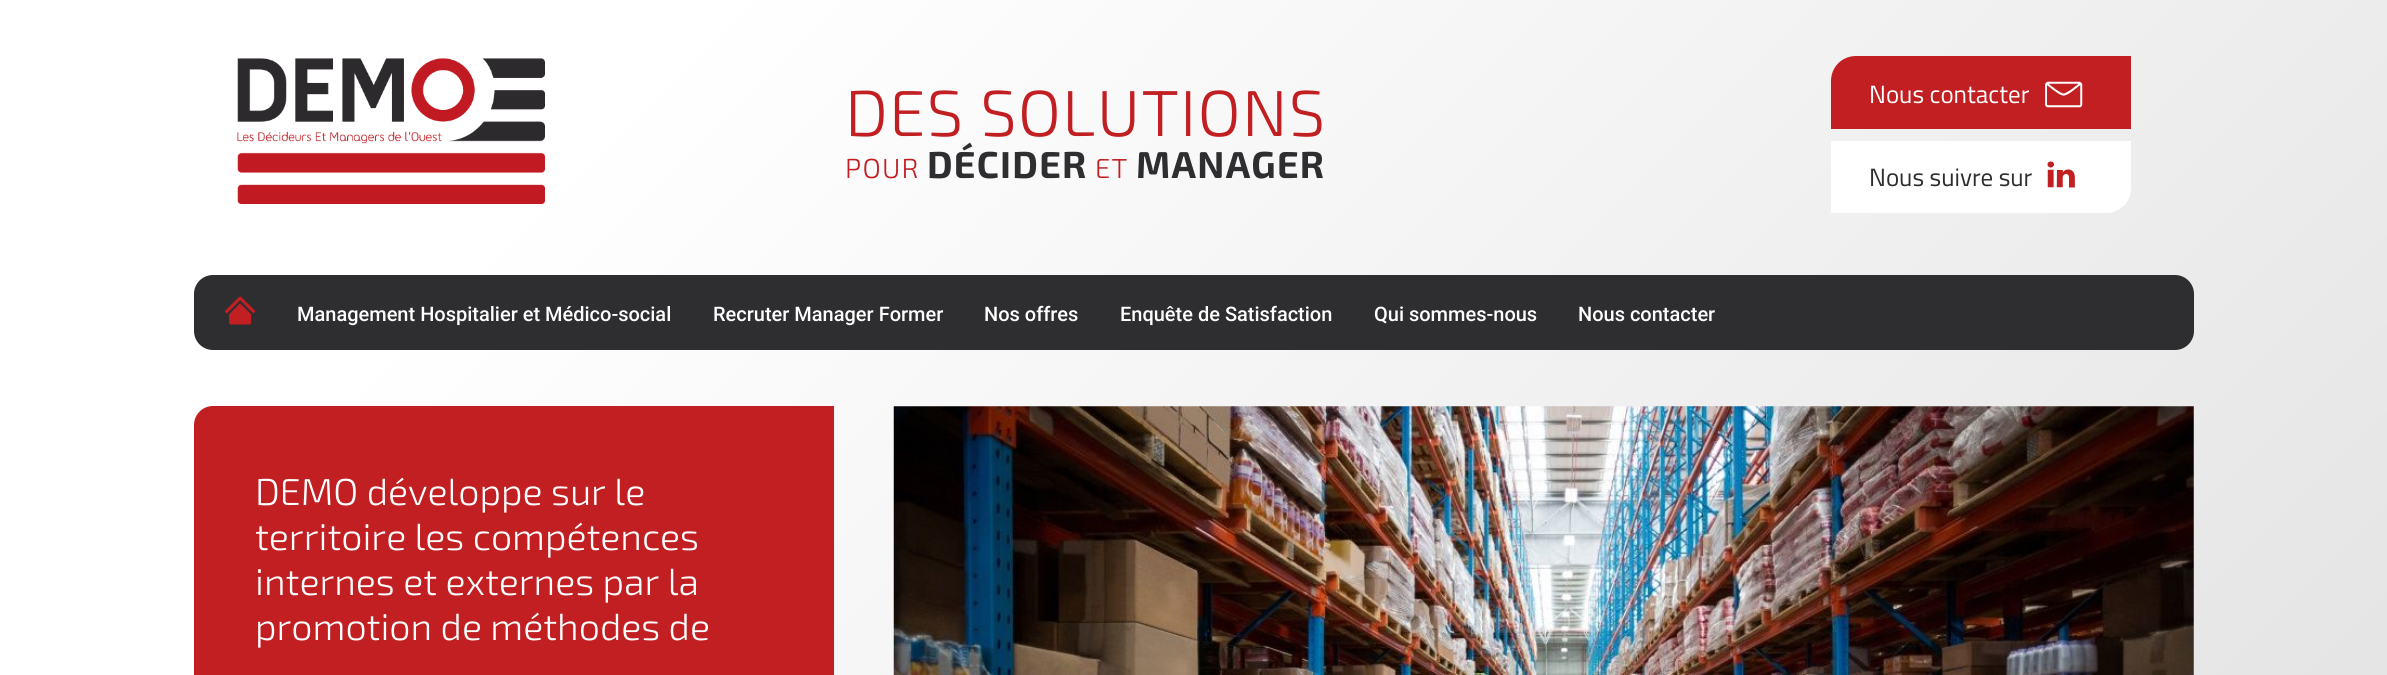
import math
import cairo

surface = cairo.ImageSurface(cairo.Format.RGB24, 2387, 675)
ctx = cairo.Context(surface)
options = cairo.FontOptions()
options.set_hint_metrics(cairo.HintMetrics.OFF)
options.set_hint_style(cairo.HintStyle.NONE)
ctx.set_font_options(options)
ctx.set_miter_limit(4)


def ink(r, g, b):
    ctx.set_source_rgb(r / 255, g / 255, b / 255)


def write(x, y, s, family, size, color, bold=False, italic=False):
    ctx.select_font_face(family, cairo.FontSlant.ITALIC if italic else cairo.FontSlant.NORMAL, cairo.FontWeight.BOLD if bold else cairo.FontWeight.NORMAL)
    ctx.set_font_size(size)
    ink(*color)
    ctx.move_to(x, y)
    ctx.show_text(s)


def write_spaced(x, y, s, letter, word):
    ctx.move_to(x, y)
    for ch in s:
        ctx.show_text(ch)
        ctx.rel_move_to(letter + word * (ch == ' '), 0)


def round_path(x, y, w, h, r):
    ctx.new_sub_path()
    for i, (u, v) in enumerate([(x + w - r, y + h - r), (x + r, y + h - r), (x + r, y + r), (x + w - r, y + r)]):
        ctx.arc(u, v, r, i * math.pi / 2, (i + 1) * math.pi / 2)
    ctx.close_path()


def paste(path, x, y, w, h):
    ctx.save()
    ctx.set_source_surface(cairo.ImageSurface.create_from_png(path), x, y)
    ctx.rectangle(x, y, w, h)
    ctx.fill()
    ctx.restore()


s1 = dict(family="Titillium Web", size=25, color=(255, 255, 255))
s2 = dict(family="Titillium Web", size=25, color=(46, 45, 48))
s3 = dict(family="Roboto Medium", size=20, color=(255, 255, 255))
s4 = dict(family="Exo 2 Light", size=37.5, color=(255, 255, 255))

ink(255, 255, 255)
ctx.paint()
gradient = cairo.LinearGradient(305, -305, 2083, 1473)
gradient.add_color_stop_rgba(0.2, 1, 1, 1, 1)
gradient.add_color_stop_rgba(0.85, 0.898, 0.898, 0.898, 1)
ctx.set_source(gradient)
ctx.rectangle(259, 0, 2128, 675)
ctx.fill()
paste("pic1.png", 237, 58, 308, 146)
ctx.select_font_face("Exo 2 Light")
ctx.set_font_size(65)
ink(193, 31, 34)
write_spaced(845, 136, "DES SOLUTIONS", 1.25, 0)
ctx.set_font_size(27.5)
write_spaced(845, 178, "POUR", 1.25, 0)
ctx.select_font_face("Exo 2", cairo.FontSlant.NORMAL, cairo.FontWeight.BOLD)
ctx.set_font_size(37.5)
ink(46, 45, 48)
write_spaced(927, 178, "DÉCIDER", 1.25, 0)
ctx.select_font_face("Exo 2 Light")
ctx.set_font_size(27.5)
ink(193, 31, 34)
write_spaced(1095, 178, "ET", 1.25, 0)
ctx.select_font_face("Exo 2", cairo.FontSlant.NORMAL, cairo.FontWeight.BOLD)
ctx.set_font_size(37.5)
ink(46, 45, 48)
write_spaced(1136, 178, "MANAGER", 1.25, 0)
ink(193, 31, 34)
ctx.new_path()
ctx.move_to(1856, 56)
ctx.line_to(2131, 56)
ctx.line_to(2131, 129)
ctx.line_to(1831, 129)
ctx.line_to(1831, 81)
ctx.curve_to(1831, 67, 1842, 56, 1856, 56)
ctx.close_path()
ctx.fill()
write(1869, 103, "Nous contacter", **s1)
paste("pic2.png", 2045, 81, 38, 27)
ctx.new_path()
ctx.move_to(1831, 141)
ctx.line_to(2131, 141)
ctx.line_to(2131, 188)
ctx.curve_to(2131, 202, 2120, 213, 2106, 213)
ctx.line_to(1831, 213)
ctx.close_path()
ctx.fill()
write(1869, 186, "Nous suivre sur", **s2)
paste("pic3.png", 2047, 161, 28, 27)
round_path(194, 275, 2000, 75, 19)
ctx.fill()
paste("pic4.png", 225, 296, 31, 29)
write(297, 321, "Management Hospitalier et Médico-social", **s3)
write(713, 321, "Recruter Manager Former", **s3)
write(984, 321, "Nos offres", **s3)
write(1120, 321, "Enquête de Satisfaction", **s3)
write(1374, 321, "Qui sommes-nous", **s3)
write(1578, 321, "Nous contacter", **s3)
ink(193, 31, 34)
ctx.new_path()
ctx.move_to(213, 406)
ctx.line_to(834, 406)
ctx.line_to(834, 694)
ctx.line_to(194, 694)
ctx.line_to(194, 425)
ctx.curve_to(194, 414.5, 202.5, 406, 213, 406)
ctx.close_path()
ctx.fill()
write(255, 505, "DEMO développe sur le", **s4)
write(255, 550, "territoire les compétences", **s4)
write(255, 595, "internes et externes par la", **s4)
write(255, 640, "promotion de méthodes de", **s4)
paste("pic5.png", 893, 406, 1301, 269)
surface.write_to_png("screenshot.png")
